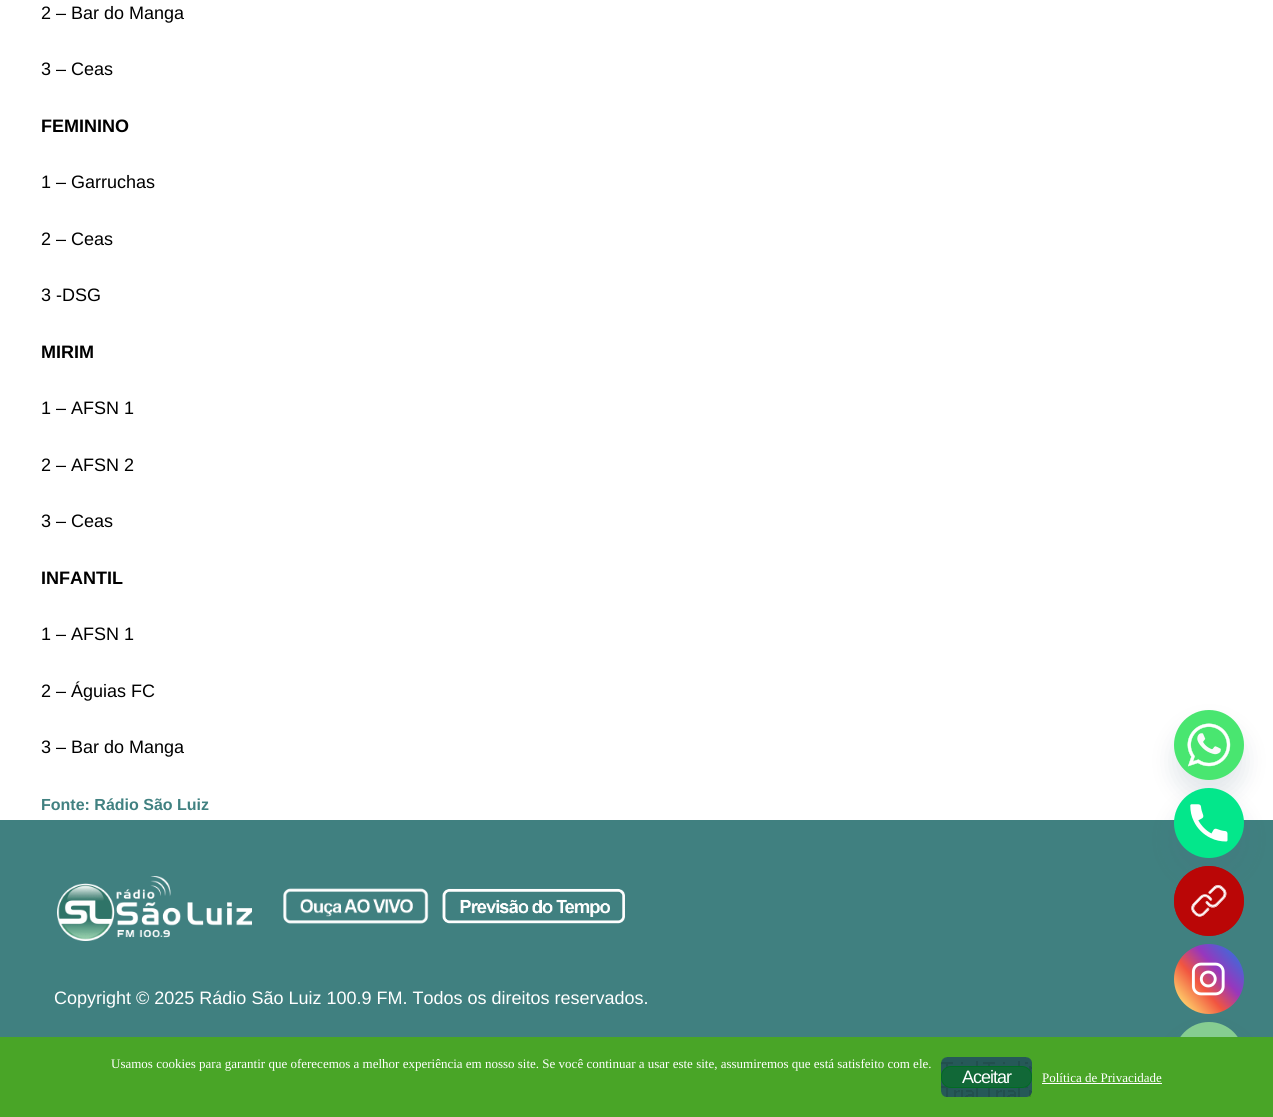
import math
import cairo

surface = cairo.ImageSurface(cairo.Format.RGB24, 1273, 1117)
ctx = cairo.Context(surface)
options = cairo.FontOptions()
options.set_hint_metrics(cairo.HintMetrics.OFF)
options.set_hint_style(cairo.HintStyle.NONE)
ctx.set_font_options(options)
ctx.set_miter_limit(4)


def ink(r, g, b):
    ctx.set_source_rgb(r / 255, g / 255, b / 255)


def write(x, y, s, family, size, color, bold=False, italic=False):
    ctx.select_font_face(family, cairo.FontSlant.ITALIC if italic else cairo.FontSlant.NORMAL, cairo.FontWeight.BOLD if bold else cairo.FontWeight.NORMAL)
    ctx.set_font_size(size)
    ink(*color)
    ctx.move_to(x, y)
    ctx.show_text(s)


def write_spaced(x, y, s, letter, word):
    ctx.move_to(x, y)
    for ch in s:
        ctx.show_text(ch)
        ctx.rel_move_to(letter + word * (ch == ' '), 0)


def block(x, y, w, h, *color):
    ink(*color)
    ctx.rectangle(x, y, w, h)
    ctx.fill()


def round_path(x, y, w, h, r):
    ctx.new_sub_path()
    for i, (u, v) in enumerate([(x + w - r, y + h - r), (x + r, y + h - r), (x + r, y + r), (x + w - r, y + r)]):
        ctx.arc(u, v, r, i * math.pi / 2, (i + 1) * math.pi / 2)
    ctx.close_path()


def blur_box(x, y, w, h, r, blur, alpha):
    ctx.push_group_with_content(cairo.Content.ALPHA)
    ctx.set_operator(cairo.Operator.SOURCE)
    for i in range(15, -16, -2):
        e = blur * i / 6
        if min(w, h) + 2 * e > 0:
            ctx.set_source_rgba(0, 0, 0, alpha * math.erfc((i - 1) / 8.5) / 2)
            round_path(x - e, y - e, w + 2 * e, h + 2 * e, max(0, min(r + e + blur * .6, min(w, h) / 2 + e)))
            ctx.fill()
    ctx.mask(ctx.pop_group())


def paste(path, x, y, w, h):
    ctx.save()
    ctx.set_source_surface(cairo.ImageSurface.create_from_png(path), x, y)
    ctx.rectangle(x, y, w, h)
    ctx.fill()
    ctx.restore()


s1 = dict(family="Liberation Sans", size=18, color=(0, 0, 0))
s2 = dict(family="Liberation Sans", size=18, color=(0, 0, 0), bold=True)
s3 = dict(family="Liberation Sans", size=16, color=(65, 129, 129), bold=True)
s4 = dict(family="Liberation Sans", size=18, color=(255, 255, 255))
s5 = dict(family="Liberation Serif", size=13, color=(255, 255, 255))

ink(255, 255, 255)
ctx.paint()
write(41, 19, "2 – Bar do Manga", **s1)
write(41, 75, "3 – Ceas", **s1)
write(41, 132, "FEMININO", **s2)
write(41, 188, "1 – Garruchas", **s1)
write(41, 245, "2 – Ceas", **s1)
write(41, 301, "3 -DSG", **s1)
write(41, 358, "MIRIM", **s2)
write(41, 414, "1 – AFSN 1", **s1)
write(41, 471, "2 – AFSN 2", **s1)
write(41, 527, "3 – Ceas", **s1)
write(41, 584, "INFANTIL", **s2)
write(41, 640, "1 – AFSN 1", **s1)
write(41, 697, "2 – Águias FC", **s1)
write(41, 753, "3 – Bar do Manga", **s1)
write(41, 810, "Fonte: Rádio São Luiz", **s3)
block(0, 820, 1273, 217, 64, 128, 128)
paste("pic1.png", 57, 876, 195, 65)
paste("pic2.png", 283, 888, 146, 36)
paste("pic3.png", 442, 888, 183, 36)
write(54, 1004, "Copyright © 2025 Rádio São Luiz 100.9 FM. Todos os direitos reservados.", **s4)
ink(73, 104, 126)
blur_box(1174, 726, 70, 70, 35, 12, 0.16)
paste("pic4.png", 1174, 710, 70, 70)
blur_box(1174, 804, 70, 70, 35, 12, 0.16)
paste("pic5.png", 1174, 788, 70, 70)
ink(186, 6, 6)
ctx.arc(1209, 901, 35, 0, 2 * math.pi)
ctx.fill()
paste("pic6.png", 1174, 866, 70, 70)
paste("pic7.png", 1174, 944, 70, 70)
ink(73, 104, 126)
blur_box(1174, 1038, 70, 70, 35, 12, 0.16)
paste("pic8.png", 1180, 1022, 58, 15)
block(0, 1037, 1273, 80, 73, 165, 39)
write(111, 1068, "Usamos cookies para garantir que oferecemos a melhor experiência em nosso site. Se você continuar a usar este site, assumiremos que está satisfeito com ele.", **s5)
paste("pic9.png", 941, 1057, 85, 40)
paste("pic10.png", 1026, 1057, 6, 40)
ink(17, 104, 55)
round_path(941.5, 1066.5, 90, 21, 9.5)
ctx.fill_preserve()
ink(0, 109, 34)
ctx.set_line_width(1)
ctx.stroke()
ctx.select_font_face("Liberation Sans")
ctx.set_font_size(18)
ink(255, 255, 255)
write_spaced(962, 1083, "Aceitar", -1, 0)
write(1042, 1082, "Política de Privacidade", **s5)
block(1042, 1083, 120, 1, 255, 255, 255)
surface.write_to_png("screenshot.png")
